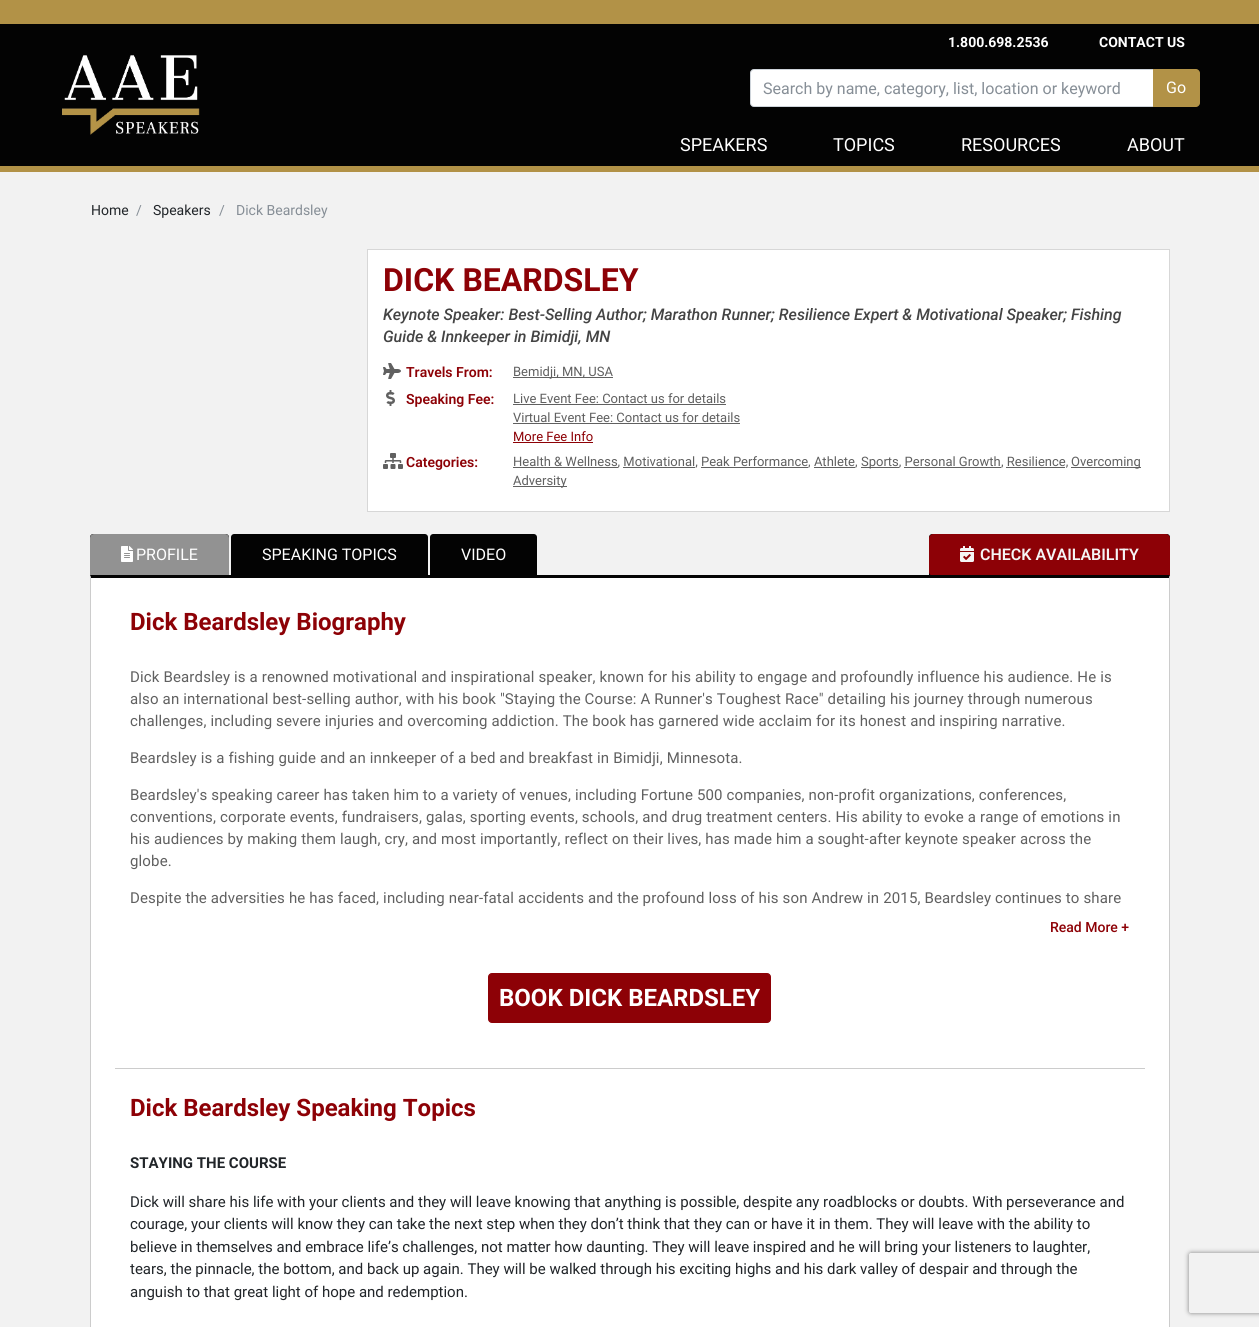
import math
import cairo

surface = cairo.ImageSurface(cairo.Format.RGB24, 1259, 1327)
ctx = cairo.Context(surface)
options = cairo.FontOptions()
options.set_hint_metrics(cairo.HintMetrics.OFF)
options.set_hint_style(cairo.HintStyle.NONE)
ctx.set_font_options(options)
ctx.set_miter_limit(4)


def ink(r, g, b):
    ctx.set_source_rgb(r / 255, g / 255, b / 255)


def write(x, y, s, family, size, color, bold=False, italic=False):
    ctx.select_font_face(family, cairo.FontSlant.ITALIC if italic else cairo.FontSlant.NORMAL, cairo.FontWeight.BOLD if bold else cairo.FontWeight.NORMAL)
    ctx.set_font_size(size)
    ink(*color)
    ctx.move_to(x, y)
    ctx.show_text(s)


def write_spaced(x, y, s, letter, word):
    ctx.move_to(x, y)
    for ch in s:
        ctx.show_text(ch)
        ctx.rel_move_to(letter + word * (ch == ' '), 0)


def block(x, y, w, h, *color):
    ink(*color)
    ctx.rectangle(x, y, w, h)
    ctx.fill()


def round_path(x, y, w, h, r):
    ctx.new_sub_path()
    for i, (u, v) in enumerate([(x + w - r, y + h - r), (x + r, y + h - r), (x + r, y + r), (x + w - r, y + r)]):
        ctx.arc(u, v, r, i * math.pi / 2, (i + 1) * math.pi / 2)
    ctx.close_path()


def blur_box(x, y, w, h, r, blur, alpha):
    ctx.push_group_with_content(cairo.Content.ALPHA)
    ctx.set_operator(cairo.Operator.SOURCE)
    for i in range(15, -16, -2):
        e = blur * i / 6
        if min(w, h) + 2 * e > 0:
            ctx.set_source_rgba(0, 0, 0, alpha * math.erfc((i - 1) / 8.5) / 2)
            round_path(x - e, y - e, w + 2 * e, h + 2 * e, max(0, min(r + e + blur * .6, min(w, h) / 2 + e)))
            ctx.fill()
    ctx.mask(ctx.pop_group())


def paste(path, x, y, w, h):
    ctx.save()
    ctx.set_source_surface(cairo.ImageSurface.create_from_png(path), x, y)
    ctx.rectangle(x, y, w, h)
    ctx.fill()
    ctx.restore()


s1 = dict(family="Roboto", size=14, color=(255, 255, 255), bold=True)
s2 = dict(family="Roboto", size=16, color=(134, 142, 150))
s3 = dict(family="Roboto", size=16, color=(255, 255, 255))
s4 = dict(family="Roboto", size=18, color=(255, 255, 255))
s5 = dict(family="Roboto", size=14, color=(33, 37, 41))
s6 = dict(family="Roboto", size=14, color=(134, 142, 150))
s7 = dict(family="Roboto", size=32, color=(141, 1, 6), bold=True)
s8 = dict(family="Roboto Medium", size=16, color=(68, 68, 68), italic=True)
s9 = dict(family="Roboto SemiBold", size=14, color=(141, 1, 6))
s10 = dict(family="Roboto", size=13, color=(96, 96, 96))
s11 = dict(family="Roboto", size=13, color=(141, 1, 6))
s12 = dict(family="Roboto SemiBold", size=16, color=(245, 245, 245))
s13 = dict(family="Roboto", size=24, color=(141, 1, 6), bold=True)
s14 = dict(family="Roboto Medium", size=14, color=(141, 1, 6))
s15 = dict(family="Roboto", size=24, color=(255, 255, 255), bold=True)
s16 = dict(family="Roboto", size=15, color=(33, 37, 41), bold=True)
s17 = dict(family="Roboto", size=15, color=(33, 37, 41))

ink(242, 242, 242)
ctx.paint()
block(0, 0, 1259, 24, 178, 146, 71)
block(0, 24, 1259, 142, 3, 3, 3)
paste("pic1.png", 62, 55, 138, 80)
write(948, 47, "1.800.698.2536", **s1)
write(1099, 47, "CONTACT US", **s1)
ctx.new_path()
ctx.move_to(754, 69.5)
ctx.line_to(1153.5, 69.5)
ctx.line_to(1153.5, 106.5)
ctx.line_to(754, 106.5)
ctx.curve_to(752, 106.5, 750.5, 105, 750.5, 103)
ctx.line_to(750.5, 73)
ctx.curve_to(750.5, 71, 752, 69.5, 754, 69.5)
ctx.close_path()
ctx.fill_preserve()
ink(206, 212, 218)
ctx.set_line_width(1)
ctx.stroke()
write(763, 94, "Search by name, category, list, location or keyword", **s2)
ink(178, 146, 71)
ctx.new_path()
ctx.move_to(1153, 69)
ctx.line_to(1196, 69)
ctx.curve_to(1198, 69, 1200, 71, 1200, 73)
ctx.line_to(1200, 103)
ctx.curve_to(1200, 105, 1198, 107, 1196, 107)
ctx.line_to(1153, 107)
ctx.close_path()
ctx.fill()
write(1166, 93, "Go", **s3)
write(680, 151, "SPEAKERS", **s4)
write(833, 151, "TOPICS", **s4)
write(961, 151, "RESOURCES", **s4)
write(1127, 151, "ABOUT", **s4)
block(0, 166, 1259, 6, 178, 146, 71)
write(91, 215, "Home", **s5)
write(136, 215, "/", **s6)
write(153, 215, "Speakers", **s5)
write(219, 215, "/", **s6)
write(236, 215, "Dick Beardsley", **s6)
ink(255, 255, 255)
ctx.rectangle(367.5, 249.5, 802, 262)
ctx.fill_preserve()
ink(215, 215, 215)
ctx.stroke()
write(383, 291, "DICK BEARDSLEY", **s7)
write(383, 320, "Keynote Speaker: Best-Selling Author; Marathon Runner; Resilience Expert & Motivational Speaker; Fishing", **s8)
write(383, 342, "Guide & Innkeeper in Bimidji, MN", **s8)
paste("pic2.png", 383, 363, 18, 16)
write(406, 377, "Travels From:", **s9)
block(513, 377, 100, 1, 96, 96, 96)
write(513, 376, "Bemidji, MN, USA", **s10)
paste("pic3.png", 386, 390, 9, 16)
write(406, 404, "Speaking Fee:", **s9)
write(513, 403, "Live Event Fee: Contact us for details", **s10)
block(513, 404, 213, 1, 96, 96, 96)
write(513, 422, "Virtual Event Fee: Contact us for details", **s10)
block(513, 423, 227, 1, 96, 96, 96)
write(513, 441, "More Fee Info", **s11)
block(513, 442, 80, 1, 141, 1, 6)
paste("pic4.png", 383, 453, 20, 16)
write(406, 467, "Categories:", **s9)
block(513, 467, 105, 1, 96, 96, 96)
write(513, 466, "Health & Wellness, Motivational, Peak Performance, Athlete,", **s10)
block(861, 467, 38, 1, 96, 96, 96)
write(861, 466, "Sports, Personal Growth", **s10)
block(904, 467, 97, 1, 96, 96, 96)
write(1001, 466, ", Resilience,", **s10)
block(1071, 467, 70, 1, 96, 96, 96)
write(1071, 466, "Overcoming", **s10)
block(623, 467, 72, 1, 96, 96, 96)
block(701, 467, 107, 1, 96, 96, 96)
block(814, 467, 41, 1, 96, 96, 96)
block(1006, 467, 59, 1, 96, 96, 96)
block(513, 486, 54, 1, 96, 96, 96)
write(513, 485, "Adversity", **s10)
ink(3, 3, 3)
ctx.new_path()
ctx.move_to(93, 534)
ctx.line_to(226, 534)
ctx.curve_to(227.5, 534, 229, 535.5, 229, 537)
ctx.line_to(229, 576)
ctx.line_to(90, 576)
ctx.line_to(90, 537)
ctx.curve_to(90, 535.5, 91.5, 534, 93, 534)
ctx.close_path()
ctx.fill()
ink(146, 146, 146)
ctx.new_path()
ctx.move_to(94, 534.5)
ctx.line_to(225, 534.5)
ctx.curve_to(227, 534.5, 228.5, 536, 228.5, 538)
ctx.line_to(228.5, 575.5)
ctx.line_to(90.5, 575.5)
ctx.line_to(90.5, 538)
ctx.curve_to(90.5, 536, 92, 534.5, 94, 534.5)
ctx.close_path()
ctx.fill_preserve()
ctx.stroke()
paste("pic5.png", 121, 546, 12, 16)
write(136, 560, "PROFILE", **s3)
ink(3, 3, 3)
ctx.new_path()
ctx.move_to(234, 534)
ctx.line_to(425, 534)
ctx.curve_to(426.5, 534, 428, 535.5, 428, 537)
ctx.line_to(428, 576)
ctx.line_to(231, 576)
ctx.line_to(231, 537)
ctx.curve_to(231, 535.5, 232.5, 534, 234, 534)
ctx.close_path()
ctx.fill()
write(262, 560, "SPEAKING TOPICS", **s3)
ink(3, 3, 3)
ctx.new_path()
ctx.move_to(433, 534)
ctx.line_to(534, 534)
ctx.curve_to(535.5, 534, 537, 535.5, 537, 537)
ctx.line_to(537, 576)
ctx.line_to(430, 576)
ctx.line_to(430, 537)
ctx.curve_to(430, 535.5, 431.5, 534, 433, 534)
ctx.close_path()
ctx.fill()
write(461, 560, "VIDEO", **s3)
ink(3, 3, 3)
ctx.new_path()
ctx.move_to(932, 534)
ctx.line_to(1167, 534)
ctx.curve_to(1168.5, 534, 1170, 535.5, 1170, 537)
ctx.line_to(1170, 576)
ctx.line_to(929, 576)
ctx.line_to(929, 537)
ctx.curve_to(929, 535.5, 930.5, 534, 932, 534)
ctx.close_path()
ctx.fill()
ink(141, 1, 6)
ctx.new_path()
ctx.move_to(933, 534)
ctx.line_to(1166, 534)
ctx.curve_to(1168, 534, 1170, 536, 1170, 538)
ctx.line_to(1170, 576)
ctx.line_to(933, 576)
ctx.curve_to(931, 576, 929, 574, 929, 572)
ctx.line_to(929, 538)
ctx.curve_to(929, 536, 931, 534, 933, 534)
ctx.close_path()
ctx.fill()
paste("pic6.png", 960, 546, 14, 16)
write(980, 560, "CHECK AVAILABILITY", **s12)
block(91, 578, 1078, 749, 255, 255, 255)
ink(3, 3, 3)
ctx.new_path()
ctx.move_to(90, 575)
ctx.line_to(1170, 575)
ctx.line_to(1169, 578)
ctx.line_to(91, 578)
ctx.close_path()
ctx.fill()
ink(204, 204, 204)
ctx.new_path()
ctx.move_to(1170, 575)
ctx.line_to(1170, 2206)
ctx.line_to(1169, 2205)
ctx.line_to(1169, 578)
ctx.close_path()
ctx.fill()
ctx.new_path()
ctx.move_to(90, 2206)
ctx.line_to(90, 575)
ctx.line_to(91, 578)
ctx.line_to(91, 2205)
ctx.close_path()
ctx.fill()
write(130, 630, "Dick Beardsley Biography", **s13)
ctx.select_font_face("Roboto")
ctx.set_font_size(15)
ink(96, 96, 96)
write_spaced(130, 682, "Dick Beardsley is a renowned motivational and inspirational speaker, known for his ability to engage and profoundly influence his audience. He is", 0.15, 0)
write_spaced(130, 704, "also an international best-selling author, with his book \"Staying the Course: A Runner's Toughest Race\" detailing his journey through numerous", 0.15, 0)
write_spaced(130, 726, "challenges, including severe injuries and overcoming addiction. The book has garnered wide acclaim for its honest and inspiring narrative.", 0.15, 0)
write_spaced(130, 763, "Beardsley is a fishing guide and an innkeeper of a bed and breakfast in Bimidji, Minnesota.", 0.15, 0)
write_spaced(130, 800, "Beardsley's speaking career has taken him to a variety of venues, including Fortune 500 companies, non-profit organizations, conferences,", 0.15, 0)
write_spaced(130, 822, "conventions, corporate events, fundraisers, galas, sporting events, schools, and drug treatment centers. His ability to evoke a range of emotions in", 0.15, 0)
write_spaced(130, 844, "his audiences by making them laugh, cry, and most importantly, reflect on their lives, has made him a sought-after keynote speaker across the", 0.15, 0)
write_spaced(130, 866, "globe.", 0.15, 0)
write_spaced(130, 903, "Despite the adversities he has faced, including near-fatal accidents and the profound loss of his son Andrew in 2015, Beardsley continues to share", 0.15, 0)
write(1050, 932, "Read More +", **s14)
round_path(488.5, 973.5, 282, 49, 3.5)
ctx.fill_preserve()
ctx.stroke()
write(499, 1006, "BOOK DICK BEARDSLEY", **s15)
block(115, 1068, 1030, 1, 204, 204, 204)
write(130, 1116, "Dick Beardsley Speaking Topics", **s13)
write(130, 1168, "STAYING THE COURSE", **s16)
write(130, 1207, "Dick will share his life with your clients and they will leave knowing that anything is possible, despite any roadblocks or doubts. With perseverance and", **s17)
write(130, 1229, "courage, your clients will know they can take the next step when they don’t think that they can or have it in them. They will leave with the ability to", **s17)
write(130, 1252, "believe in themselves and embrace life’s challenges, not matter how daunting. They will leave inspired and he will bring your listeners to laughter,", **s17)
write(130, 1274, "tears, the pinnacle, the bottom, and back up again. They will be walked through his exciting highs and his dark valley of despair and through the", **s17)
write(130, 1297, "anguish to that great light of hope and redemption.", **s17)
ctx.save()
ctx.set_fill_rule(cairo.FillRule.EVEN_ODD)
ctx.new_path()
ctx.move_to(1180, 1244)
ctx.line_to(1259, 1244)
ctx.line_to(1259, 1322)
ctx.line_to(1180, 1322)
ctx.close_path()
ctx.move_to(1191, 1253)
ctx.line_to(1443, 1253)
ctx.curve_to(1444, 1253, 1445, 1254, 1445, 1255)
ctx.line_to(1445, 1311)
ctx.curve_to(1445, 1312, 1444, 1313, 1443, 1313)
ctx.line_to(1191, 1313)
ctx.curve_to(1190, 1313, 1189, 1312, 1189, 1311)
ctx.line_to(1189, 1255)
ctx.curve_to(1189, 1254, 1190, 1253, 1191, 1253)
ctx.close_path()
ctx.clip()
ink(128, 128, 128)
blur_box(1189, 1253, 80, 60, 2, 2.5, 1)
ctx.restore()
surface.write_to_png("screenshot.png")
